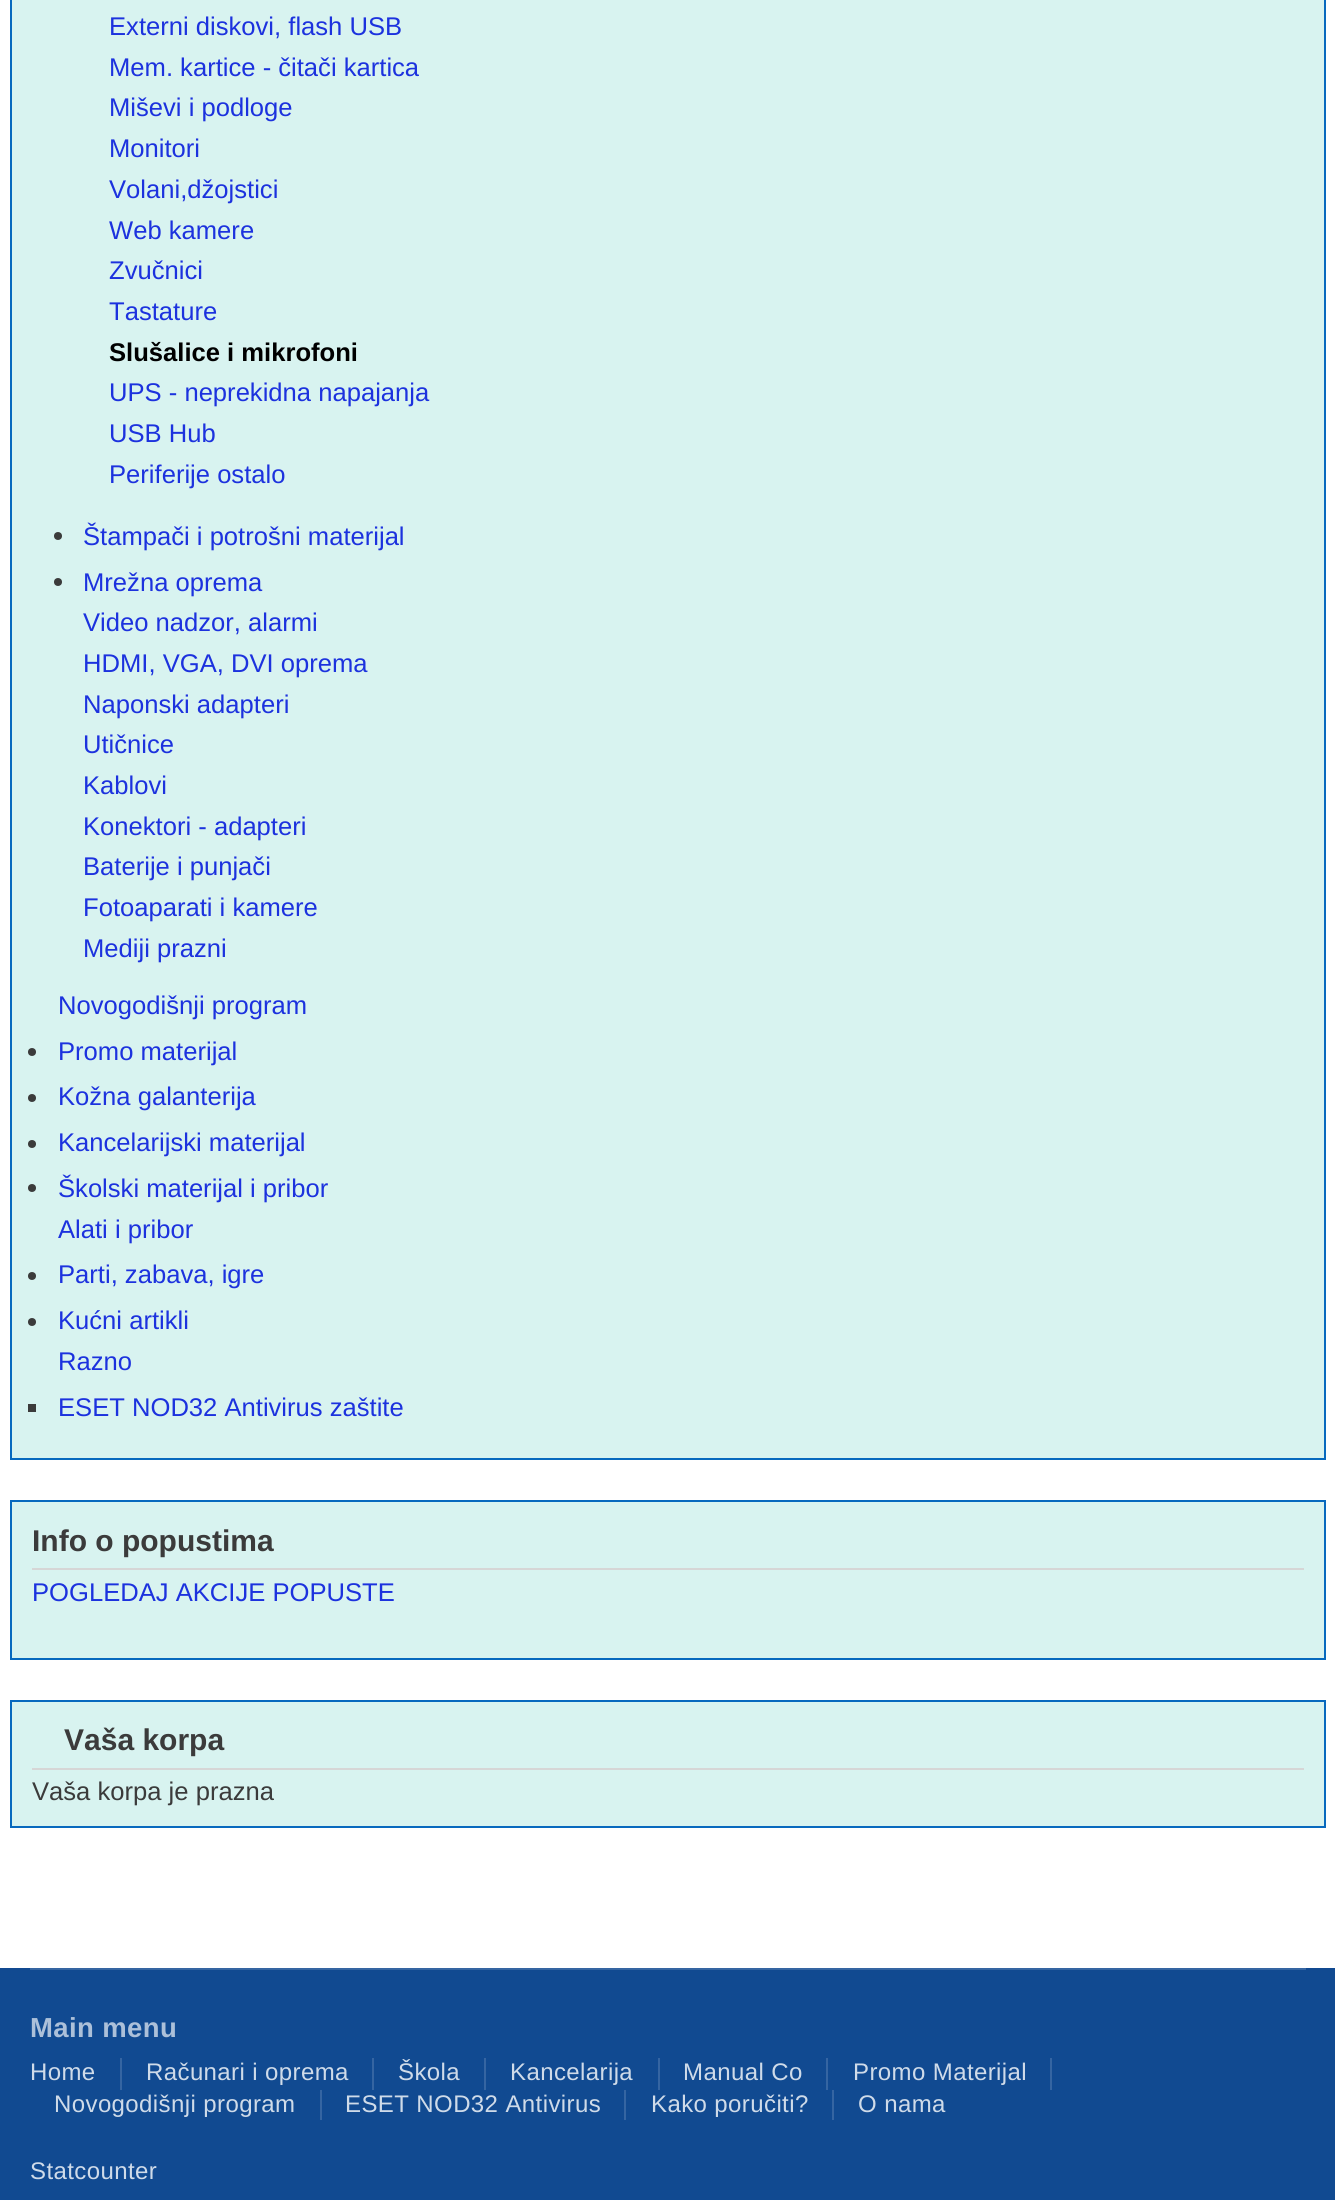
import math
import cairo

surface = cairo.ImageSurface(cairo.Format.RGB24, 1335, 2200)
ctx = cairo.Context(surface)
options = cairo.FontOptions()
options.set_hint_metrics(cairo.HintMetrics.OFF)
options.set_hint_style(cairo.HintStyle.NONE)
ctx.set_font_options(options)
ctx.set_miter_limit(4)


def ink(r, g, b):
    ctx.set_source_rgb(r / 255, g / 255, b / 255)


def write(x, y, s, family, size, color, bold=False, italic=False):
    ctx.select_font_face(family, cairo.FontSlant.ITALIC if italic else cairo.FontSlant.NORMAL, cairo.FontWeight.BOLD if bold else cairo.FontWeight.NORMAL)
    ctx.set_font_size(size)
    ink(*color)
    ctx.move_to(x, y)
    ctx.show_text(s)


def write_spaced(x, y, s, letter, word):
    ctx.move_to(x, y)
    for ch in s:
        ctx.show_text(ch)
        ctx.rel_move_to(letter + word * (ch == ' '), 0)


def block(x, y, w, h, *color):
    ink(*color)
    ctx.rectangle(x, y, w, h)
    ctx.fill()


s1 = dict(family="Liberation Sans", size=25.6, color=(28, 50, 222))
s2 = dict(family="Liberation Sans", size=25.6, color=(0, 0, 0), bold=True)
s3 = dict(family="Liberation Sans", size=30, color=(59, 59, 59), bold=True)
s4 = dict(family="Liberation Sans", size=25.6, color=(59, 59, 59))

ink(255, 255, 255)
ctx.paint()
ink(216, 243, 240)
ctx.rectangle(11, -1, 1314, 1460)
ctx.fill_preserve()
ink(8, 105, 190)
ctx.stroke()
write(109, 35, "Externi diskovi, flash USB", **s1)
write(109, 76, "Mem. kartice - čitači kartica", **s1)
write(109, 116, "Miševi i podloge", **s1)
write(109, 157, "Monitori", **s1)
write(109, 198, "Volani,džojstici", **s1)
write(109, 239, "Web kamere", **s1)
write(109, 279, "Zvučnici", **s1)
write(109, 320, "Tastature", **s1)
write(109, 361, "Slušalice i mikrofoni", **s2)
write(109, 401, "UPS - neprekidna napajanja", **s1)
write(109, 442, "USB Hub", **s1)
write(109, 483, "Periferije ostalo", **s1)
ink(59, 59, 59)
ctx.new_path()
ctx.arc(58, 536, 4, 0, 2 * math.pi)
ctx.fill()
write(83, 545, "Štampači i potrošni materijal", **s1)
ink(59, 59, 59)
ctx.new_path()
ctx.arc(58, 582, 4, 0, 2 * math.pi)
ctx.fill()
write(83, 591, "Mrežna oprema", **s1)
write(83, 631, "Video nadzor, alarmi", **s1)
write(83, 672, "HDMI, VGA, DVI oprema", **s1)
write(83, 713, "Naponski adapteri", **s1)
write(83, 753, "Utičnice", **s1)
write(83, 794, "Kablovi", **s1)
write(83, 835, "Konektori - adapteri", **s1)
write(83, 875, "Baterije i punjači", **s1)
write(83, 916, "Fotoaparati i kamere", **s1)
write(83, 957, "Mediji prazni", **s1)
write(58, 1014, "Novogodišnji program", **s1)
ink(59, 59, 59)
ctx.new_path()
ctx.arc(32, 1052, 4, 0, 2 * math.pi)
ctx.fill()
write(58, 1060, "Promo materijal", **s1)
ink(59, 59, 59)
ctx.new_path()
ctx.arc(32, 1098, 4, 0, 2 * math.pi)
ctx.fill()
write(58, 1105, "Kožna galanterija", **s1)
ink(59, 59, 59)
ctx.new_path()
ctx.arc(32, 1144, 4, 0, 2 * math.pi)
ctx.fill()
write(58, 1151, "Kancelarijski materijal", **s1)
ink(59, 59, 59)
ctx.new_path()
ctx.arc(32, 1188, 4, 0, 2 * math.pi)
ctx.fill()
write(58, 1197, "Školski materijal i pribor", **s1)
write(58, 1238, "Alati i pribor", **s1)
ink(59, 59, 59)
ctx.new_path()
ctx.arc(32, 1276, 4, 0, 2 * math.pi)
ctx.fill()
write(58, 1283, "Parti, zabava, igre", **s1)
ink(59, 59, 59)
ctx.new_path()
ctx.arc(32, 1322, 4, 0, 2 * math.pi)
ctx.fill()
write(58, 1329, "Kućni artikli", **s1)
write(58, 1370, "Razno", **s1)
block(28, 1404, 8, 8, 59, 59, 59)
write(58, 1416, "ESET NOD32 Antivirus zaštite", **s1)
ink(216, 243, 240)
ctx.rectangle(11, 1501, 1314, 158)
ctx.fill_preserve()
ink(8, 105, 190)
ctx.stroke()
block(32, 1568, 1272, 2, 214, 214, 214)
write(32, 1551, "Info o popustima", **s3)
write(32, 1601, "POGLEDAJ AKCIJE POPUSTE", **s1)
ink(216, 243, 240)
ctx.rectangle(11, 1701, 1314, 126)
ctx.fill_preserve()
ink(8, 105, 190)
ctx.stroke()
block(32, 1768, 1272, 2, 214, 214, 214)
write(64, 1750, "Vaša korpa", **s3)
write(32, 1800, "Vaša korpa je prazna", **s4)
block(0, 1968, 1335, 232, 17, 74, 145)
block(30, 1968, 1276, 2, 53, 101, 162)
ctx.select_font_face("Liberation Sans", cairo.FontSlant.NORMAL, cairo.FontWeight.BOLD)
ctx.set_font_size(27.5)
ink(172, 192, 217)
write_spaced(30, 2037, "Main menu", 0.4, 0)
block(120, 2058, 2, 32, 53, 101, 162)
ctx.select_font_face("Liberation Sans")
ctx.set_font_size(24)
ink(207, 219, 233)
write_spaced(30, 2080, "Home", 0.4, 0)
block(372, 2058, 2, 32, 53, 101, 162)
ink(207, 219, 233)
write_spaced(146, 2080, "Računari i oprema", 0.4, 0)
block(484, 2058, 2, 32, 53, 101, 162)
ink(207, 219, 233)
write_spaced(398, 2080, "Škola", 0.4, 0)
block(658, 2058, 2, 32, 53, 101, 162)
ink(207, 219, 233)
write_spaced(510, 2080, "Kancelarija", 0.4, 0)
block(826, 2058, 2, 32, 53, 101, 162)
ink(207, 219, 233)
write_spaced(683, 2080, "Manual Co", 0.4, 0)
block(1050, 2058, 2, 32, 53, 101, 162)
ink(207, 219, 233)
write_spaced(853, 2080, "Promo Materijal", 0.4, 0)
block(320, 2090, 2, 30, 53, 101, 162)
ink(207, 219, 233)
write_spaced(54, 2112, "Novogodišnji program", 0.4, 0)
block(624, 2090, 2, 30, 53, 101, 162)
ink(207, 219, 233)
write_spaced(345, 2112, "ESET NOD32 Antivirus", 0.4, 0)
block(832, 2090, 2, 30, 53, 101, 162)
ink(207, 219, 233)
write_spaced(651, 2112, "Kako poručiti?", 0.4, 0)
write_spaced(858, 2112, "O nama", 0.4, 0)
write_spaced(30, 2179, "Statcounter", 0.4, 0)
surface.write_to_png("screenshot.png")
